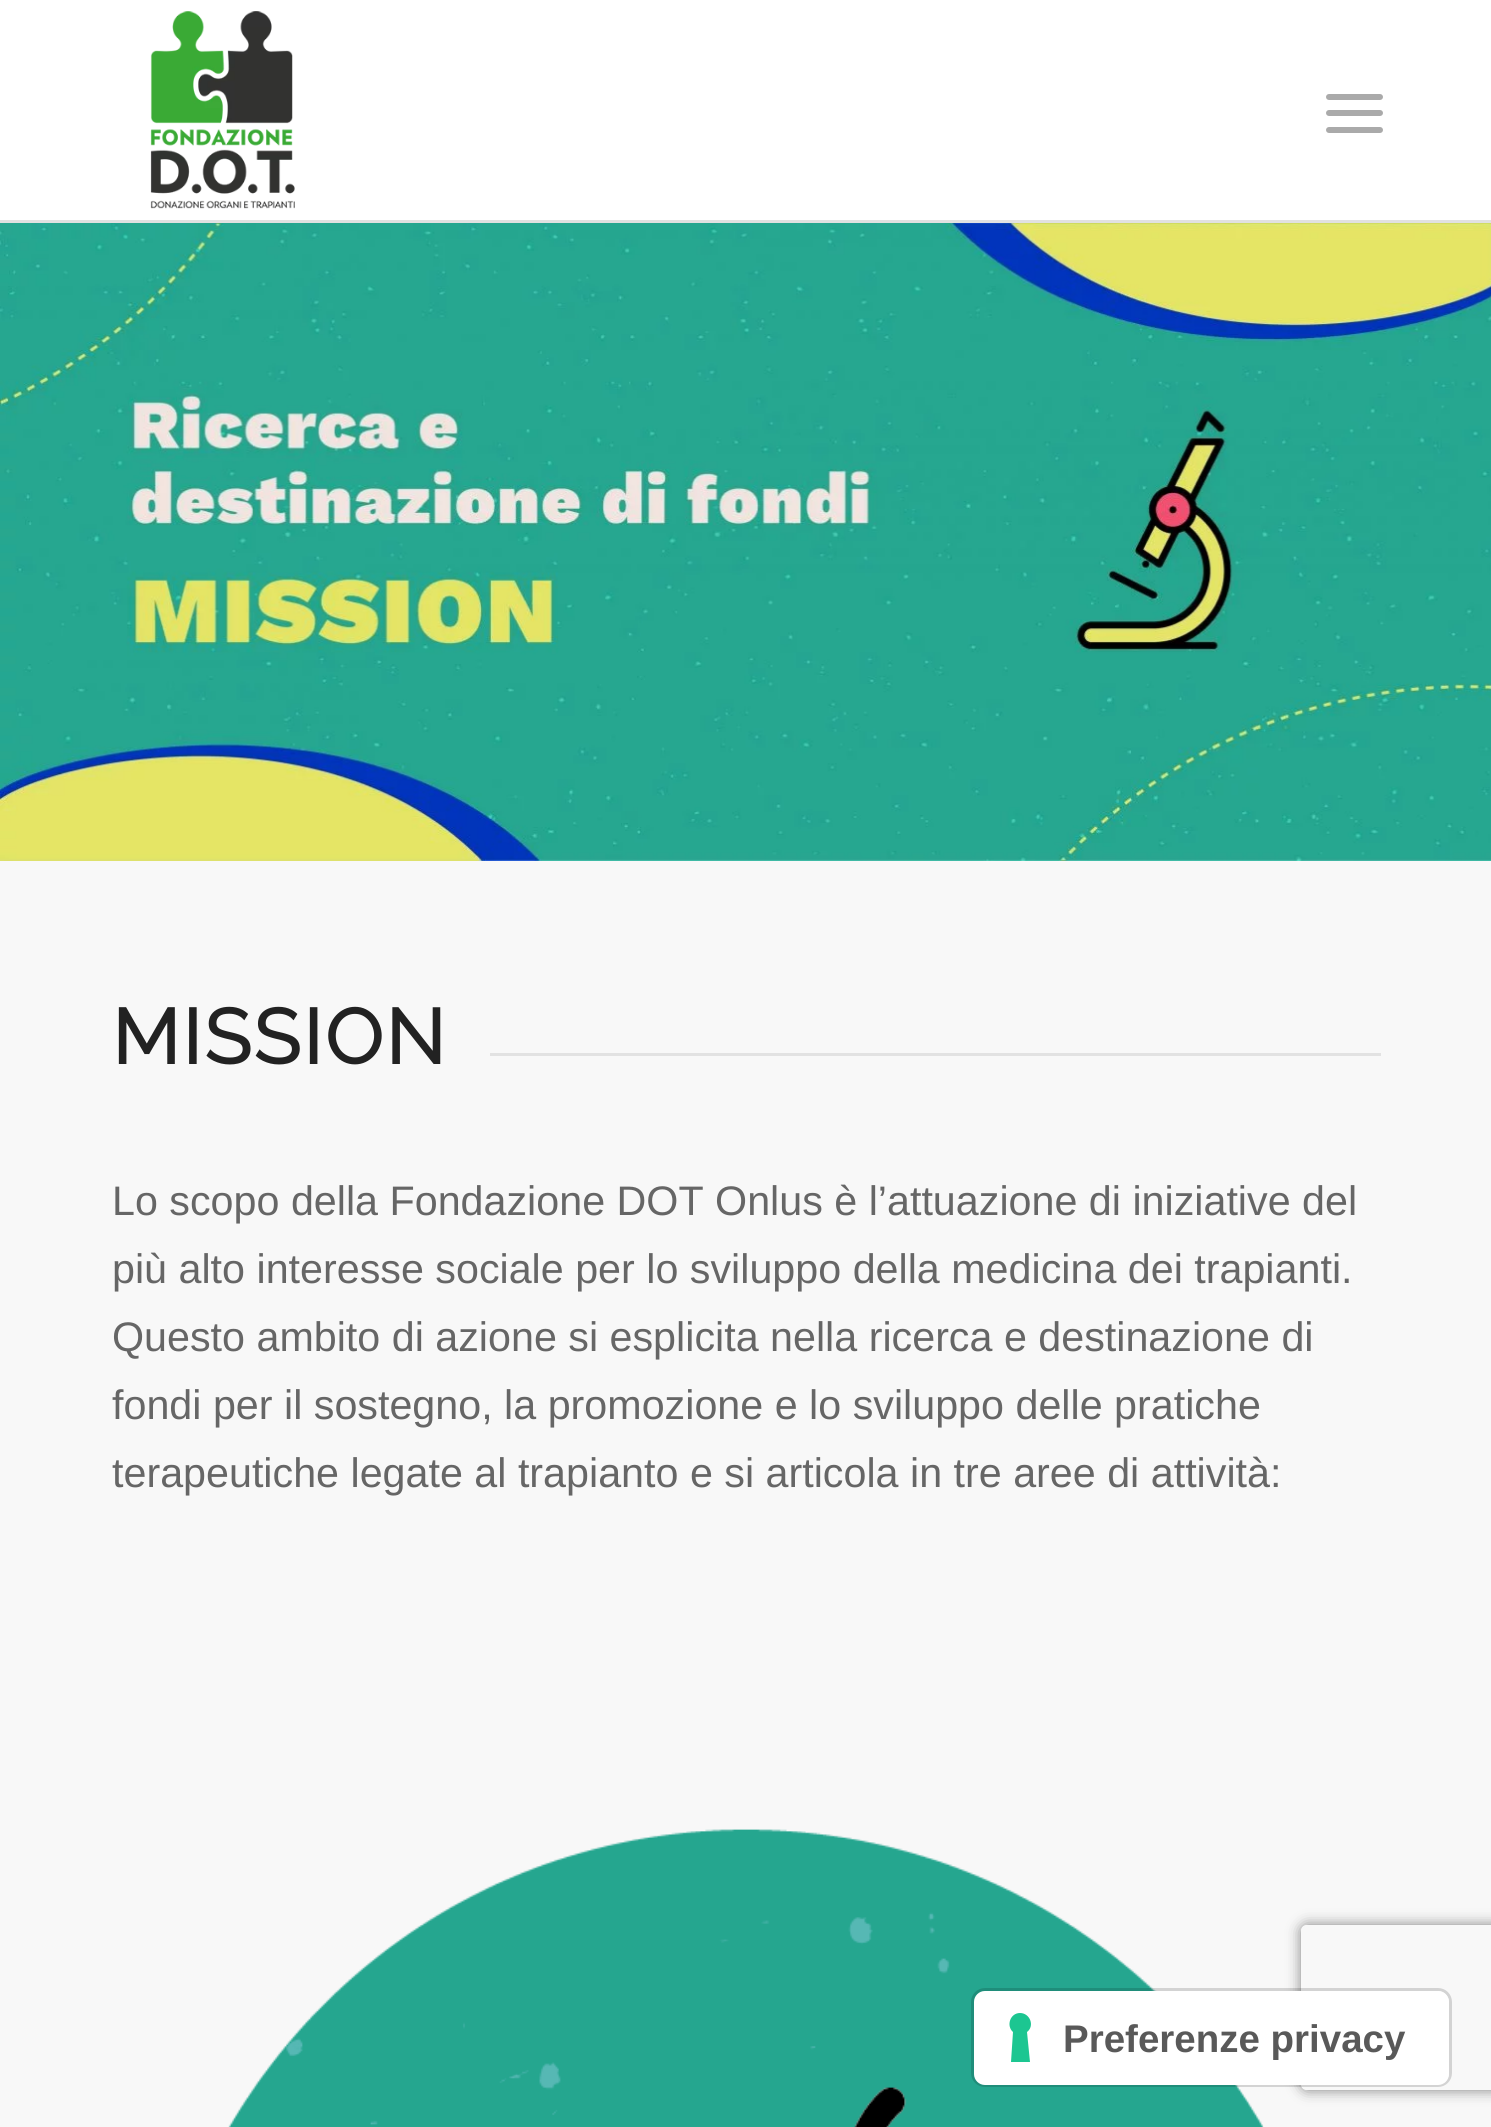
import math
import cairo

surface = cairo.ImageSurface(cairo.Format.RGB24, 1491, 2127)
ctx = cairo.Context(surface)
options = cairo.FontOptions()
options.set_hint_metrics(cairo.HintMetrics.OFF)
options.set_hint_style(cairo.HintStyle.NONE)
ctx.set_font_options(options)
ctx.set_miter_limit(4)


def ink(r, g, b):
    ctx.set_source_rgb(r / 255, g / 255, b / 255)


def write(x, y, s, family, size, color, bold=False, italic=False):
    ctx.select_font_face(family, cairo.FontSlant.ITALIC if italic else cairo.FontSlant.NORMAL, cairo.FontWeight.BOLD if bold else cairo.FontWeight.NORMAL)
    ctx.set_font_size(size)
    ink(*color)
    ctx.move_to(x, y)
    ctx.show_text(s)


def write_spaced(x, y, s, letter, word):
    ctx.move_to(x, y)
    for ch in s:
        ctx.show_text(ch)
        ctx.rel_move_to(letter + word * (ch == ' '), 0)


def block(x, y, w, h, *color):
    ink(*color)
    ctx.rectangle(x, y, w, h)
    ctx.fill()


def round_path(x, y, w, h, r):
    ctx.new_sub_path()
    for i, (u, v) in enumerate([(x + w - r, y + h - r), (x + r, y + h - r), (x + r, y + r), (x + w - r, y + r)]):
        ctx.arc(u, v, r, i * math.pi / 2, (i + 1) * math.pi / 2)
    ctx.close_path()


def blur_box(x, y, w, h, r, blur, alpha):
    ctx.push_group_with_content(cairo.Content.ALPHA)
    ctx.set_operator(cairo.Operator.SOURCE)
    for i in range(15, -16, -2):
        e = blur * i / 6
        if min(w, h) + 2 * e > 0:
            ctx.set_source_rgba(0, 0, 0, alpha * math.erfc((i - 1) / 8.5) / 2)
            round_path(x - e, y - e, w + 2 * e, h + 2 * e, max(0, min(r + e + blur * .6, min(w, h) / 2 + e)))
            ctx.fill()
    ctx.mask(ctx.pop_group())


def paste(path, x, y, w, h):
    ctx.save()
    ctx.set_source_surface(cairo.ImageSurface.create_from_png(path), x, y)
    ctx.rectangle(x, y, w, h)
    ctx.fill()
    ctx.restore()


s1 = dict(family="Liberation Sans", size=41.25, color=(102, 102, 102))
s2 = dict(family="Liberation Sans", size=38.5, color=(89, 89, 89), bold=True)

ink(255, 255, 255)
ctx.paint()
block(0, 220, 1491, 3, 225, 225, 225)
paste("pic1.png", 150, 11, 145, 198)
ink(170, 170, 170)
round_path(1326, 110, 57, 6, 3)
ctx.fill()
round_path(1326, 94, 57, 6, 3)
ctx.fill()
round_path(1326, 127, 57, 6, 3)
ctx.fill()
paste("pic2.png", 0, 223, 1491, 638)
block(0, 861, 1491, 1266, 248, 248, 248)
ctx.select_font_face("Raleway", cairo.FontSlant.NORMAL, cairo.FontWeight.BOLD)
ctx.set_font_size(77)
ink(34, 34, 34)
write_spaced(112, 1064, "MISSION", 2.75, 0)
block(490, 1053, 891, 3, 226, 226, 226)
write(112, 1215, "Lo scopo della Fondazione DOT Onlus è l’attuazione di iniziative del", **s1)
write(112, 1283, "più alto interesse sociale per lo sviluppo della medicina dei trapianti.", **s1)
write(112, 1351, "Questo ambito di azione si esplicita nella ricerca e destinazione di", **s1)
write(112, 1419, "fondi per il sostegno, la promozione e lo sviluppo delle pratiche", **s1)
write(112, 1487, "terapeutiche legate al trapianto e si articola in tre aree di attività:", **s1)
paste("pic3.png", 228, 1829, 1036, 298)
ctx.save()
ctx.set_fill_rule(cairo.FillRule.EVEN_ODD)
ctx.new_path()
ctx.move_to(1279, 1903)
ctx.line_to(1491, 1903)
ctx.line_to(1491, 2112)
ctx.line_to(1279, 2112)
ctx.close_path()
ctx.move_to(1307, 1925)
ctx.line_to(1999, 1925)
ctx.curve_to(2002.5, 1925, 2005, 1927.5, 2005, 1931)
ctx.line_to(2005, 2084)
ctx.curve_to(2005, 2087.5, 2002.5, 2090, 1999, 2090)
ctx.line_to(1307, 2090)
ctx.curve_to(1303.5, 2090, 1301, 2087.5, 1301, 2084)
ctx.line_to(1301, 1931)
ctx.curve_to(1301, 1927.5, 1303.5, 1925, 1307, 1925)
ctx.close_path()
ctx.clip()
ink(128, 128, 128)
blur_box(1301, 1925, 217, 165, 6, 7, 1)
ctx.restore()
round_path(972.5, 1989.5, 478, 96, 12.5)
ctx.set_source_rgba(0, 0, 0, 0.15)
ctx.set_line_width(3)
ctx.stroke()
ink(255, 255, 255)
round_path(974, 1991, 475, 94, 11)
ctx.fill()
ink(28, 198, 145)
ctx.set_fill_rule(cairo.FillRule.EVEN_ODD)
ctx.new_path()
ctx.move_to(1020, 2013)
ctx.curve_to(1030, 2013, 1035, 2026, 1027, 2032)
ctx.line_to(1030, 2062)
ctx.line_to(1011, 2062)
ctx.line_to(1013, 2032)
ctx.curve_to(1006, 2026, 1010, 2013, 1020, 2013)
ctx.close_path()
ctx.fill()
write(1063, 2052, "Preferenze privacy", **s2)
surface.write_to_png("screenshot.png")
